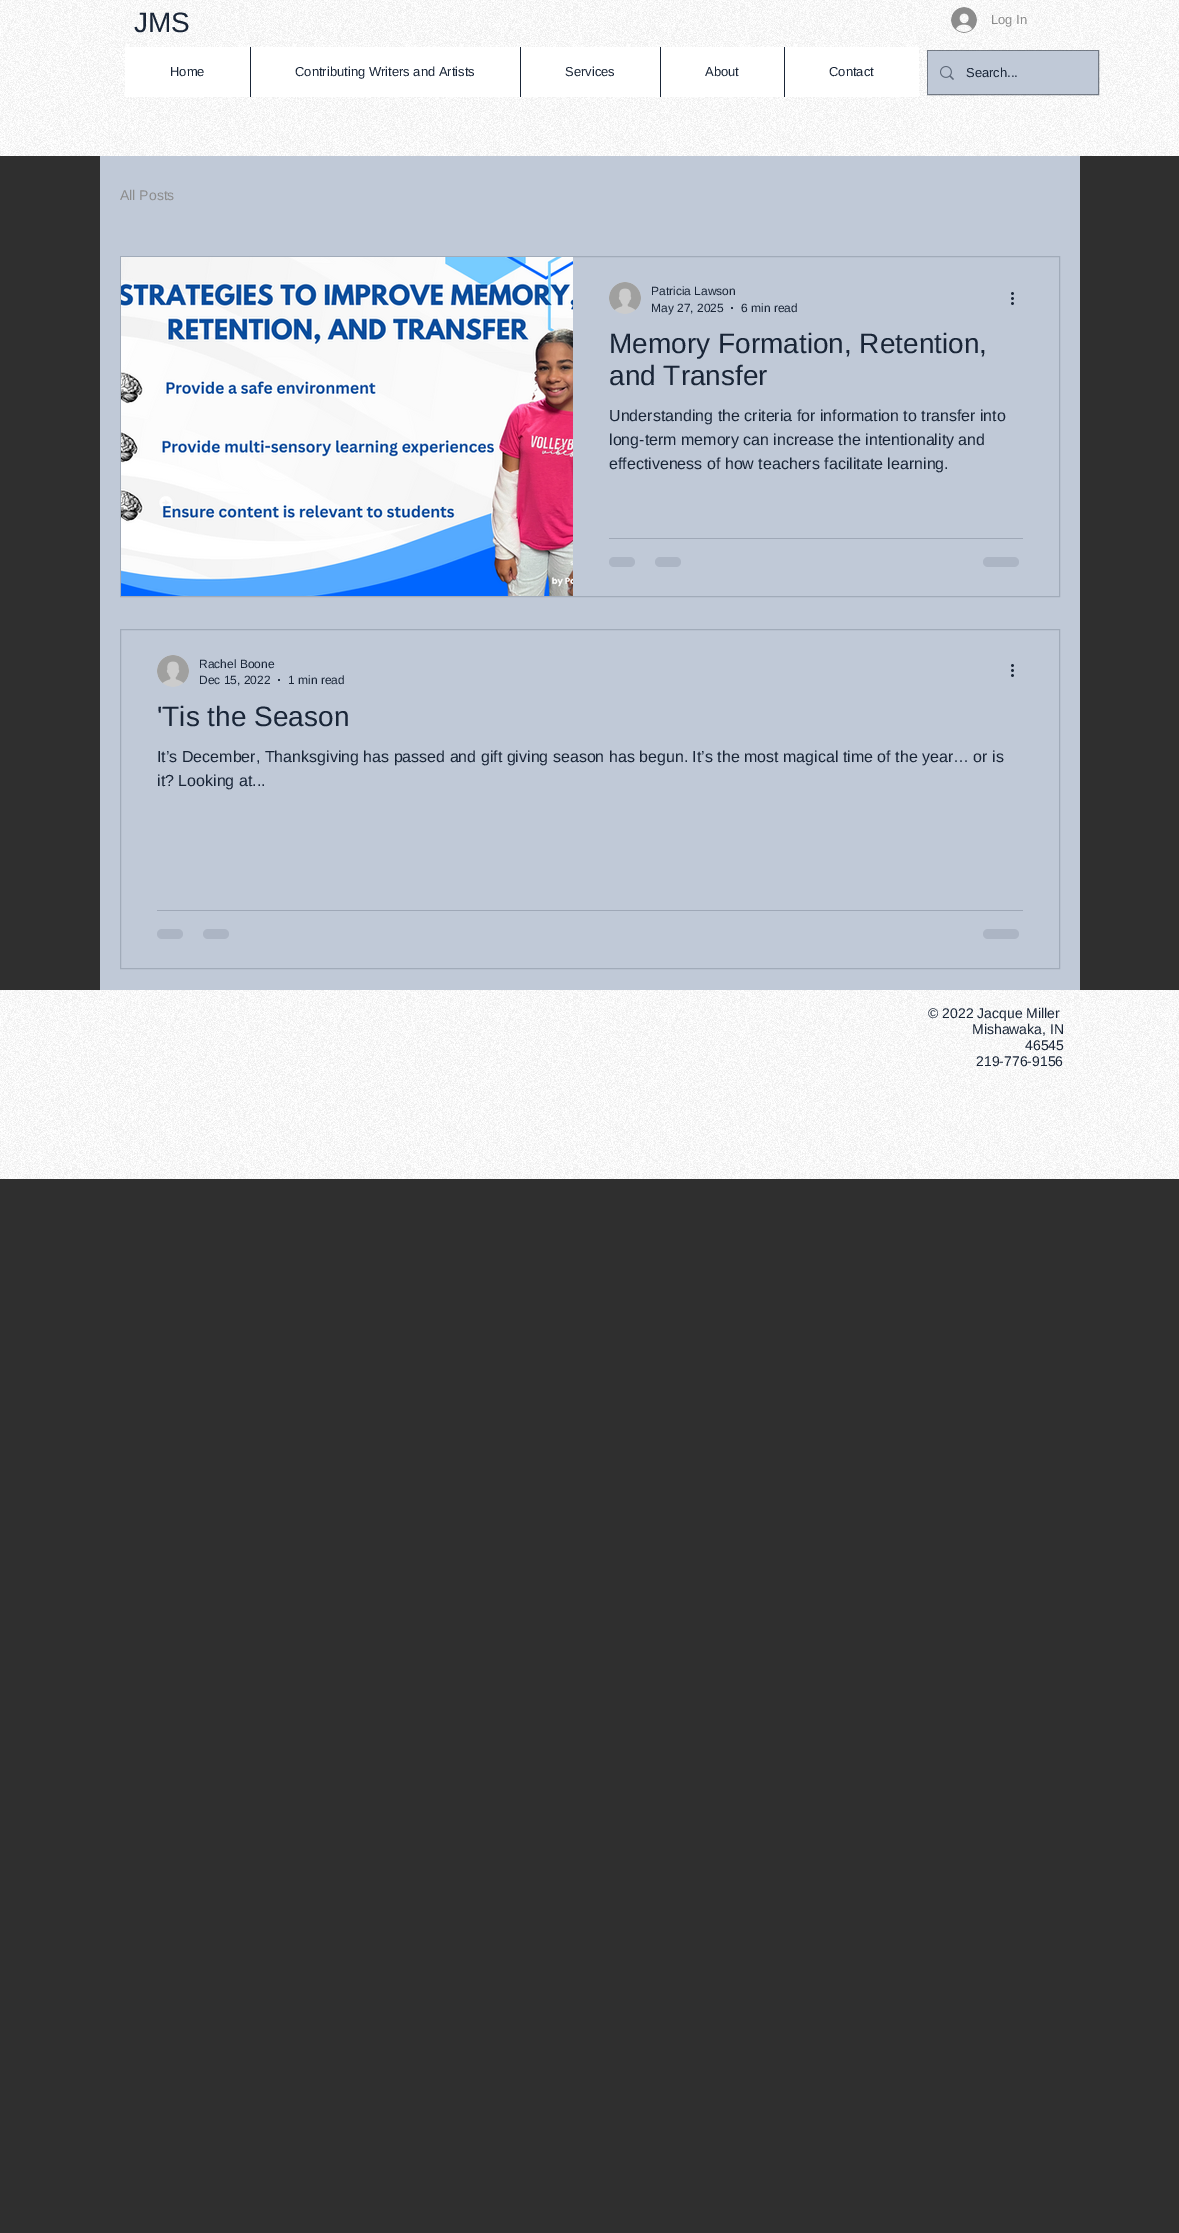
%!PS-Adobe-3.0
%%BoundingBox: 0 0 1179 2233
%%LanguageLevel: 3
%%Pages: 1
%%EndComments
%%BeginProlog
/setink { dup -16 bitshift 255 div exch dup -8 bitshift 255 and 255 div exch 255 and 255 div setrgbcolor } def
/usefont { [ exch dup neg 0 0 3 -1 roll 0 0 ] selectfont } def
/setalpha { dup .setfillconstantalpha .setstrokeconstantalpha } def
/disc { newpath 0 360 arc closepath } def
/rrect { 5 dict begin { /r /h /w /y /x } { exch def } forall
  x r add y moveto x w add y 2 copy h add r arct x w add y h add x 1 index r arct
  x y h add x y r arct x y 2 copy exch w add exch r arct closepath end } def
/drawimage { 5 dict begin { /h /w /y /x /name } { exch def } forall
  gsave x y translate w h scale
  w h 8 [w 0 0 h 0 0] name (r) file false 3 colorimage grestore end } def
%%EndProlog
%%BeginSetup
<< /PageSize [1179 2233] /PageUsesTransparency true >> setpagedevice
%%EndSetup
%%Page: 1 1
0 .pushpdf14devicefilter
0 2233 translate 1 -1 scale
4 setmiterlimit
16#2F2F2F setink
0 0 1179 2233 rectfill
16#FFFFFF setink
0 0 1179 156 rectfill
(img1.raw) 0 0 1179 156 drawimage
/LiberationSans-Regular 28 usefont
16#192537 setink
134 32 moveto (JMS) show
(img2.raw) 951 7 26 26 drawimage
/LiberationSans-Regular 13 usefont
16#8C8C8C setink
991 24 moveto (Log In) show
16#FFFFFF setink
125 47 794 50 rectfill
16#192537 setink
170 76 moveto (Home) show
250 47 1 50 rectfill
295 76 moveto (Contributing Writers and Artists) show
520 47 1 50 rectfill
565 76 moveto (Services) show
660 47 1 50 rectfill
705 76 moveto (About) show
784 47 1 50 rectfill
829 76 moveto (Contact) show
0.6 setalpha
927.5 50.5 171 44 rectstroke
1 setalpha
16#C0C9D7 setink
928 51 170 43 rectfill
(img3.raw) 940 66 14 14 drawimage
16#192537 setink
966 77 moveto (Search...) show
16#C0C9D7 setink
100 156 980 834 rectfill
/LiberationSans-Regular 14 usefont
16#8C8C8C setink
120 200 moveto (All Posts) show
16#A1ABB9 setink
120.5 256.5 939 340 rectstroke
(img4.raw) 121 257 452 339 drawimage
(img5.raw) 609 282 32 32 drawimage
/LiberationSans-Regular 12 usefont
16#192537 setink
651 295 moveto (Patricia Lawson) show
651 312 moveto (May 27, 2025) show
732 308 1 disc fill
741 312 moveto (6 min read) show
(img6.raw) 1011 292 3 13 drawimage
/LiberationSans-Regular 28 usefont
609 353 moveto (Memory Formation, Retention,) show
609 385 moveto (and Transfer) show
/LiberationSans-Regular 16 usefont
[
    [(Understanding the criteria for information to transfer into) 609 421]
    [(long-term memory can increase the intentionality and) 609 445]
    [(effectiveness of how teachers facilitate learning.) 609 469]
] { aload pop moveto show } forall
16#9FA8B7 setink
609 538 414 1 rectfill
16#ACB5C4 setink
609 557 26 10 5 rrect fill
655 557 26 10 5 rrect fill
983 557 36 10 5 rrect fill
16#A1ABB9 setink
120.5 629.5 939 339 rectstroke
(img5.raw) 157 655 32 32 drawimage
/LiberationSans-Regular 12 usefont
16#192537 setink
199 668 moveto (Rachel Boone) show
199 684 moveto (Dec 15, 2022) show
279 680 1 disc fill
288 684 moveto (1 min read) show
(img6.raw) 1011 664 3 13 drawimage
/LiberationSans-Regular 28 usefont
157 726 moveto ('Tis the Season) show
/LiberationSans-Regular 16 usefont
157 762 moveto (It’s December, Thanksgiving has passed and gift giving season has begun. It’s the most magical time of the year… or is) show
157 786 moveto (it? Looking at...) show
16#9FA8B7 setink
157 910 866 1 rectfill
16#ACB5C4 setink
157 929 26 10 5 rrect fill
203 929 26 10 5 rrect fill
983 929 36 10 5 rrect fill
16#FFFFFF setink
0 990 1179 189 rectfill
(img7.raw) 0 990 1179 189 drawimage
/LiberationSans-Regular 14 usefont
16#192537 setink
[
    [(© 2022 Jacque Miller) 928 1018]
    [(Mishawaka, IN) 972 1034]
    [(46545) 1025 1050]
    [(219-776-9156) 976 1066]
] { aload pop moveto show } forall
.poppdf14devicefilter showpage
%%EOF
